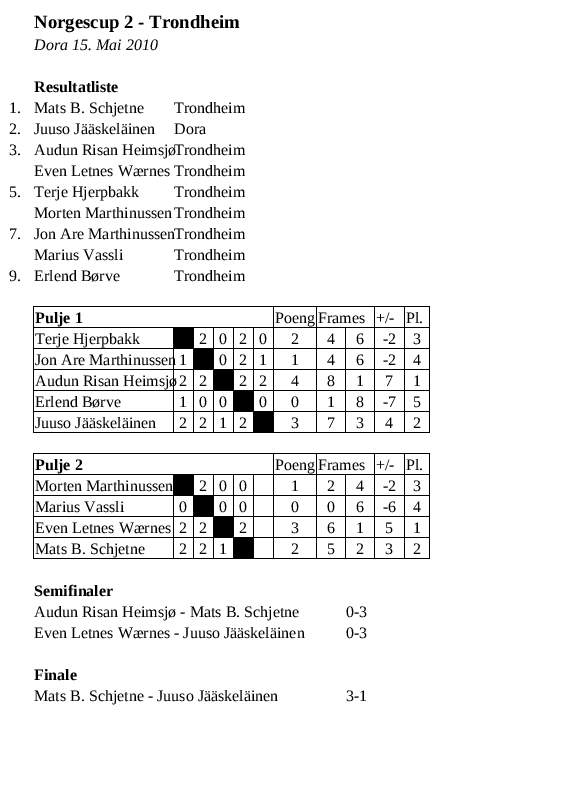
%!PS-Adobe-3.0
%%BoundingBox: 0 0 577 799
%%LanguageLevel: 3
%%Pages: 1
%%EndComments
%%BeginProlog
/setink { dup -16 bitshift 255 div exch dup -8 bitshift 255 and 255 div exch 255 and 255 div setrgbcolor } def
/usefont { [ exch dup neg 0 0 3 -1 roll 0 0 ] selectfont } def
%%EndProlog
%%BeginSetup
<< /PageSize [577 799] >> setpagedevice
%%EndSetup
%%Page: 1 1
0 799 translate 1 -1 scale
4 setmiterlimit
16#FFFFFF setink
0 0 577 799 rectfill
/LiberationSerif-Bold 18.75 usefont
16#000000 setink
34 28 moveto (Norgescup 2 - Trondheim) show
/LiberationSerif-Italic 16 usefont
34 50 moveto (Dora 15. Mai 2010) show
/LiberationSerif-Bold 16 usefont
34 92 moveto (Resultatliste) show
/LiberationSerif-Regular 16 usefont
[
    [(1.) 9 113]
    [(Mats B. Schjetne) 34 113]
    [(Trondheim) 174 113]
    [(2.) 9 134]
    [(Juuso Jääskeläinen) 34 134]
    [(Dora) 174 134]
    [(3.) 9 155]
    [(Audun Risan Heimsjø) 34 155]
    [(Trondheim) 174 155]
    [(Even Letnes Wærnes Trondheim) 34 176]
    [(5.) 9 197]
    [(Terje Hjerpbakk) 34 197]
    [(Trondheim) 174 197]
    [(Morten Marthinussen) 34 218]
    [(Trondheim) 174 218]
    [(7.) 9 239]
    [(Jon Are Marthinussen) 34 239]
    [(Trondheim) 174 239]
    [(Marius Vassli) 34 260]
    [(Trondheim) 174 260]
    [(9.) 9 281]
    [(Erlend Børve) 34 281]
    [(Trondheim) 174 281]
] { aload pop moveto show } forall
[
    [173 327 20 21 16#000000]
    [193 348 20 21 16#000000]
    [193 327 1 22 16#000000]
    [213 369 20 21 16#000000]
    [213 348 1 22 16#000000]
    [233 390 20 21 16#000000]
    [233 369 1 22 16#000000]
    [253 411 20 21 16#000000]
    [253 390 1 22 16#000000]
    [429 327 1 106 16#000000]
    [404 432 26 1 16#000000]
    [404 411 1 22 16#000000]
    [374 432 31 1 16#000000]
    [374 411 1 22 16#000000]
    [345 432 30 1 16#000000]
    [345 411 1 22 16#000000]
    [316 432 30 1 16#000000]
    [316 411 1 22 16#000000]
    [273 432 44 1 16#000000]
    [273 411 1 22 16#000000]
    [233 432 41 1 16#000000]
    [233 411 1 22 16#000000]
    [213 432 21 1 16#000000]
    [213 411 1 22 16#000000]
    [213 411 41 1 16#000000]
    [213 390 1 22 16#000000]
    [193 432 21 1 16#000000]
    [193 411 1 22 16#000000]
    [193 411 21 1 16#000000]
    [193 390 1 22 16#000000]
    [193 390 41 1 16#000000]
    [193 369 1 22 16#000000]
    [173 432 21 1 16#000000]
    [173 411 1 22 16#000000]
    [173 411 21 1 16#000000]
    [173 390 1 22 16#000000]
    [173 390 21 1 16#000000]
    [173 369 1 22 16#000000]
    [173 369 41 1 16#000000]
    [173 348 1 22 16#000000]
    [33 432 141 1 16#000000]
    [33 411 1 22 16#000000]
    [33 411 141 1 16#000000]
    [33 390 1 22 16#000000]
    [33 390 141 1 16#000000]
    [33 369 1 22 16#000000]
    [33 369 141 1 16#000000]
    [33 348 1 22 16#000000]
    [33 348 161 1 16#000000]
    [33 327 1 22 16#000000]
    [33 327 141 1 16#000000]
    [316 306 114 1 16#000000]
    [429 306 1 22 16#000000]
    [404 411 26 1 16#000000]
    [404 390 1 22 16#000000]
    [404 390 26 1 16#000000]
    [404 369 1 22 16#000000]
    [404 369 26 1 16#000000]
    [404 348 1 22 16#000000]
    [404 348 26 1 16#000000]
    [404 327 1 22 16#000000]
    [404 327 26 1 16#000000]
    [404 306 1 22 16#000000]
    [374 411 31 1 16#000000]
    [374 390 1 22 16#000000]
    [374 390 31 1 16#000000]
    [374 369 1 22 16#000000]
    [374 369 31 1 16#000000]
    [374 348 1 22 16#000000]
    [374 348 31 1 16#000000]
    [374 327 1 22 16#000000]
    [374 327 31 1 16#000000]
    [374 306 1 22 16#000000]
    [345 411 30 1 16#000000]
    [345 390 1 22 16#000000]
    [345 390 30 1 16#000000]
    [345 369 1 22 16#000000]
    [345 369 30 1 16#000000]
    [345 348 1 22 16#000000]
    [345 348 30 1 16#000000]
    [345 327 1 22 16#000000]
    [316 411 30 1 16#000000]
    [316 390 1 22 16#000000]
    [316 390 30 1 16#000000]
    [316 369 1 22 16#000000]
    [316 369 30 1 16#000000]
    [316 348 1 22 16#000000]
    [316 348 30 1 16#000000]
    [316 327 1 22 16#000000]
    [316 327 59 1 16#000000]
    [316 306 1 22 16#000000]
    [33 306 284 1 16#000000]
    [33 306 1 22 16#000000]
] { aload pop setink rectfill } forall
/LiberationSerif-Bold 16 usefont
35 323 moveto (Pulje 1) show
[
    [273 411 44 1 16#000000]
    [273 390 1 22 16#000000]
    [273 390 44 1 16#000000]
    [273 369 1 22 16#000000]
    [273 369 44 1 16#000000]
    [273 348 1 22 16#000000]
    [273 348 44 1 16#000000]
    [273 327 1 22 16#000000]
    [273 327 44 1 16#000000]
    [273 306 1 22 16#000000]
    [253 390 21 1 16#000000]
    [253 369 1 22 16#000000]
    [253 369 21 1 16#000000]
    [253 348 1 22 16#000000]
    [253 348 21 1 16#000000]
    [253 327 1 22 16#000000]
    [233 369 21 1 16#000000]
    [233 348 1 22 16#000000]
    [233 348 21 1 16#000000]
    [233 327 1 22 16#000000]
    [213 348 21 1 16#000000]
    [213 327 1 22 16#000000]
    [193 327 81 1 16#000000]
] { aload pop setink rectfill } forall
/LiberationSerif-Regular 16 usefont
[
    [(Poeng) 275 323]
    [(Frames) 318 323]
    [(+/-) 376 323]
    [(Pl.) 406 323]
    [(Terje Hjerpbakk) 35 344]
    [(2) 199 344]
    [(0) 219 344]
    [(2) 239 344]
    [(0) 259 344]
    [(2) 291 344]
    [(4) 327 344]
    [(6) 356 344]
    [(-2) 383 344]
    [(3) 413 344]
    [(Jon Are Marthinussen) 35 365]
    [(1) 179 365]
    [(0) 219 365]
    [(2) 239 365]
    [(1) 259 365]
    [(1) 291 365]
    [(4) 327 365]
    [(6) 356 365]
    [(-2) 383 365]
    [(4) 413 365]
    [(Audun Risan Heimsjø) 35 386]
    [(2) 179 386]
    [(2) 199 386]
    [(2) 239 386]
    [(2) 259 386]
    [(4) 291 386]
    [(8) 327 386]
    [(1) 356 386]
    [(7) 385 386]
    [(1) 413 386]
    [(Erlend Børve) 35 407]
    [(1) 179 407]
    [(0) 199 407]
    [(0) 219 407]
    [(0) 259 407]
    [(0) 291 407]
    [(1) 327 407]
    [(8) 356 407]
    [(-7) 383 407]
    [(5) 413 407]
    [(Juuso Jääskeläinen) 35 428]
    [(2) 179 428]
    [(2) 199 428]
    [(1) 219 428]
    [(2) 239 428]
    [(3) 291 428]
    [(7) 327 428]
    [(3) 356 428]
    [(4) 385 428]
    [(2) 413 428]
] { aload pop moveto show } forall
[
    [173 474 20 21 16#000000]
    [193 495 20 21 16#000000]
    [193 474 1 22 16#000000]
    [213 516 20 21 16#000000]
    [213 495 1 22 16#000000]
    [233 537 20 21 16#000000]
    [233 516 1 22 16#000000]
    [429 474 1 85 16#000000]
    [404 558 26 1 16#000000]
    [404 537 1 22 16#000000]
    [374 558 31 1 16#000000]
    [374 537 1 22 16#000000]
    [345 558 30 1 16#000000]
    [345 537 1 22 16#000000]
    [316 558 30 1 16#000000]
    [316 537 1 22 16#000000]
    [273 558 44 1 16#000000]
    [273 537 1 22 16#000000]
    [253 558 21 1 16#000000]
    [253 537 1 22 16#000000]
    [213 558 41 1 16#000000]
    [213 537 1 22 16#000000]
    [193 558 21 1 16#000000]
    [193 537 1 22 16#000000]
    [193 537 41 1 16#000000]
    [193 516 1 22 16#000000]
    [173 558 21 1 16#000000]
    [173 537 1 22 16#000000]
    [173 537 21 1 16#000000]
    [173 516 1 22 16#000000]
    [173 516 41 1 16#000000]
    [173 495 1 22 16#000000]
    [33 558 141 1 16#000000]
    [33 537 1 22 16#000000]
    [33 537 141 1 16#000000]
    [33 516 1 22 16#000000]
    [33 516 141 1 16#000000]
    [33 495 1 22 16#000000]
    [33 495 161 1 16#000000]
    [33 474 1 22 16#000000]
    [33 474 141 1 16#000000]
    [316 453 114 1 16#000000]
    [429 453 1 22 16#000000]
    [404 537 26 1 16#000000]
    [404 516 1 22 16#000000]
    [404 516 26 1 16#000000]
    [404 495 1 22 16#000000]
    [404 495 26 1 16#000000]
    [404 474 1 22 16#000000]
    [404 474 26 1 16#000000]
    [404 453 1 22 16#000000]
    [374 537 31 1 16#000000]
    [374 516 1 22 16#000000]
    [374 516 31 1 16#000000]
    [374 495 1 22 16#000000]
    [374 495 31 1 16#000000]
    [374 474 1 22 16#000000]
    [374 474 31 1 16#000000]
    [374 453 1 22 16#000000]
    [345 537 30 1 16#000000]
    [345 516 1 22 16#000000]
    [345 516 30 1 16#000000]
    [345 495 1 22 16#000000]
    [345 495 30 1 16#000000]
    [345 474 1 22 16#000000]
    [316 537 30 1 16#000000]
    [316 516 1 22 16#000000]
    [316 516 30 1 16#000000]
    [316 495 1 22 16#000000]
    [316 495 30 1 16#000000]
    [316 474 1 22 16#000000]
    [316 474 59 1 16#000000]
    [316 453 1 22 16#000000]
    [33 453 284 1 16#000000]
    [33 453 1 22 16#000000]
] { aload pop setink rectfill } forall
/LiberationSerif-Bold 16 usefont
35 470 moveto (Pulje 2) show
[
    [273 537 44 1 16#000000]
    [273 516 1 22 16#000000]
    [273 516 44 1 16#000000]
    [273 495 1 22 16#000000]
    [273 495 44 1 16#000000]
    [273 474 1 22 16#000000]
    [273 474 44 1 16#000000]
    [273 453 1 22 16#000000]
    [253 537 21 1 16#000000]
    [253 516 1 22 16#000000]
    [253 516 21 1 16#000000]
    [253 495 1 22 16#000000]
    [253 495 21 1 16#000000]
    [253 474 1 22 16#000000]
    [233 516 21 1 16#000000]
    [233 495 1 22 16#000000]
    [233 495 21 1 16#000000]
    [233 474 1 22 16#000000]
    [213 495 21 1 16#000000]
    [213 474 1 22 16#000000]
    [193 474 81 1 16#000000]
] { aload pop setink rectfill } forall
/LiberationSerif-Regular 16 usefont
[
    [(Poeng) 275 470]
    [(Frames) 318 470]
    [(+/-) 376 470]
    [(Pl.) 406 470]
    [(Morten Marthinussen) 35 491]
    [(2) 199 491]
    [(0) 219 491]
    [(0) 239 491]
    [(1) 291 491]
    [(2) 327 491]
    [(4) 356 491]
    [(-2) 383 491]
    [(3) 413 491]
    [(Marius Vassli) 35 512]
    [(0) 179 512]
    [(0) 219 512]
    [(0) 239 512]
    [(0) 291 512]
    [(0) 327 512]
    [(6) 356 512]
    [(-6) 383 512]
    [(4) 413 512]
    [(Even Letnes Wærnes) 35 533]
    [(2) 179 533]
    [(2) 199 533]
    [(2) 239 533]
    [(3) 291 533]
    [(6) 327 533]
    [(1) 356 533]
    [(5) 385 533]
    [(1) 413 533]
    [(Mats B. Schjetne) 35 554]
    [(2) 179 554]
    [(2) 199 554]
    [(1) 219 554]
    [(2) 291 554]
    [(5) 327 554]
    [(2) 356 554]
    [(3) 385 554]
    [(2) 413 554]
] { aload pop moveto show } forall
/LiberationSerif-Bold 16 usefont
34 596 moveto (Semifinaler) show
/LiberationSerif-Regular 16 usefont
[
    [(Audun Risan Heimsjø - Mats B. Schjetne) 34 617]
    [(0-3) 346 617]
    [(Even Letnes Wærnes - Juuso Jääskeläinen) 34 638]
    [(0-3) 346 638]
] { aload pop moveto show } forall
/LiberationSerif-Bold 16 usefont
34 680 moveto (Finale) show
/LiberationSerif-Regular 16 usefont
34 701 moveto (Mats B. Schjetne - Juuso Jääskeläinen) show
346 701 moveto (3-1) show
showpage
%%EOF
